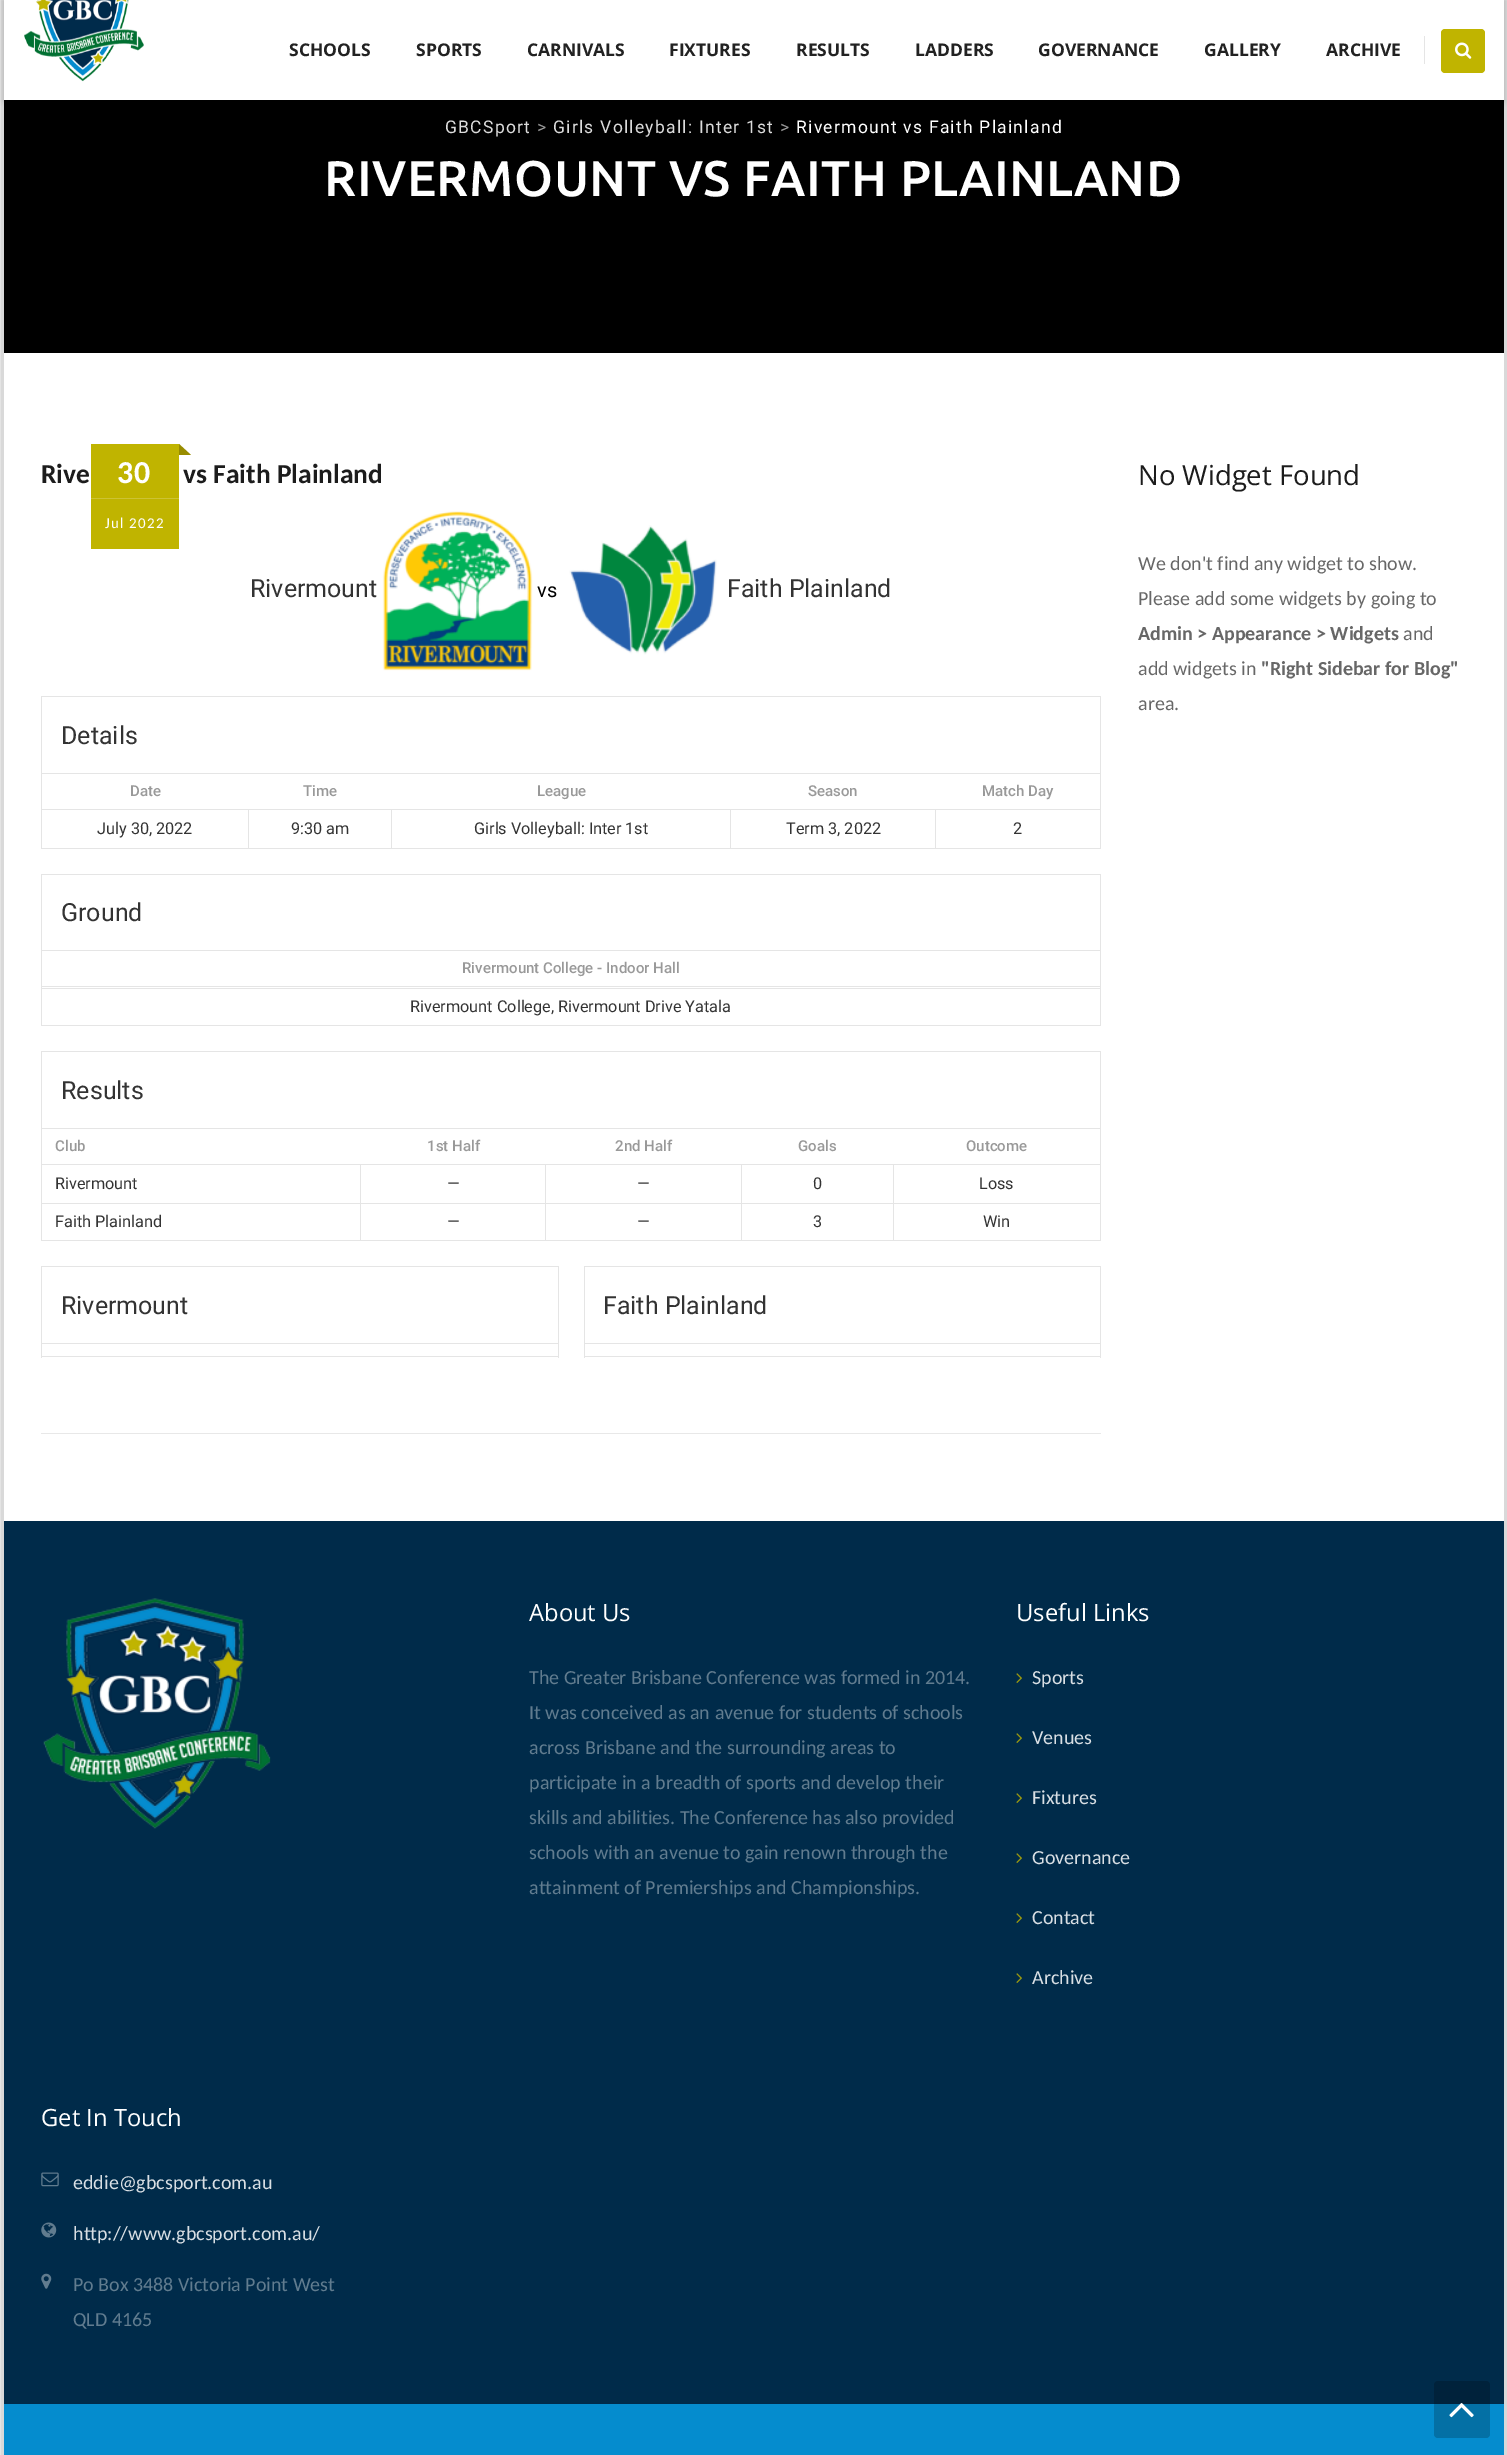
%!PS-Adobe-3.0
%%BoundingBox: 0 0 1507 2455
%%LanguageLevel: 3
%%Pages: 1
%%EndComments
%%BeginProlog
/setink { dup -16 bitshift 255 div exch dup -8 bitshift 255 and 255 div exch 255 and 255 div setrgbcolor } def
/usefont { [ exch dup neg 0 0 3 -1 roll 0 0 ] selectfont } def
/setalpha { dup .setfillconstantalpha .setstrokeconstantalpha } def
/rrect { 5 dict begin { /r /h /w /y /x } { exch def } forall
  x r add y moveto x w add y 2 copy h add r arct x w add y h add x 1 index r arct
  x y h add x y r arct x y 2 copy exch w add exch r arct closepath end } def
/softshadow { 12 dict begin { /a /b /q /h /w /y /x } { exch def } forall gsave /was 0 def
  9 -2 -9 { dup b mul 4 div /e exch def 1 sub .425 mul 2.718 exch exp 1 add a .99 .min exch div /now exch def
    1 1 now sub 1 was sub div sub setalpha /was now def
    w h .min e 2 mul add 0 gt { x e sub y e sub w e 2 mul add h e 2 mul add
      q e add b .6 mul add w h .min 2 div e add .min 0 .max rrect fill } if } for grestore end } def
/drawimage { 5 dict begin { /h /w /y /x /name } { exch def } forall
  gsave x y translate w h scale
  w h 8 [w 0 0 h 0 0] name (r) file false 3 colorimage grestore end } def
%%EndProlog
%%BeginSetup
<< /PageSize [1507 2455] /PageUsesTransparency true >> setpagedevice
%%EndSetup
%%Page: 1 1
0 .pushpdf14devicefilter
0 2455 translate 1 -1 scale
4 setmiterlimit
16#FFFFFF setink
0 0 1507 2455 rectfill
16#000000 setink
4 -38 1500 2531 0 12.5 0.3 softshadow
16#FFFFFF setink
4 353 1500 1168 rectfill
16#000000 setink
4 100 1500 253 rectfill
4 1 1500 100 0 3 0.2 softshadow
16#FFFFFF setink
4 0 1500 100 rectfill
(img1.raw) 24 0 120 82 drawimage
/OpenSans-Bold 17.5 usefont
16#222222 setink
[
    [(SCHOOLS) 289 56]
    [(SPORTS) 416 56]
    [(CARNIVALS) 527 56]
    [(FIXTURES) 669 56]
    [(RESULTS) 796 56]
    [(LADDERS) 915 56]
    [(GOVERNANCE) 1038 56]
    [(GALLERY) 1204 56]
    [(ARCHIVE) 1326 56]
] { aload pop moveto show } forall
16#E5E5E5 setink
1424 36 1 28 rectfill
16#C0B400 setink
1441 29 44 44 4 rrect fill
(img2.raw) 1455 42 17 17 drawimage
/Roboto-Regular 17.5 usefont
16#DBDBDB setink
445 133 moveto 1.25 0 (GBCSport) ashow
16#999999 setink
537 133 moveto 1.25 0 (>) ashow
16#DBDBDB setink
553 133 moveto 1.25 0 (Girls Volleyball: Inter 1st) ashow
16#999999 setink
780 133 moveto 1.25 0 (>) ashow
16#FFFFFF setink
796 133 moveto 1.25 0 (Rivermount vs Faith Plainland) ashow
/Ubuntu-Medium 50 usefont
324 196 moveto 0.6 0 (RIVERMOUNT VS FAITH PLAINLAND) ashow
16#C0B400 setink
91 444 88 105 rectfill
16#988C00 setink
191 455 moveto 179 455 lineto 179 444 lineto closepath fill
16#CDC333 setink
91 498 88 1 rectfill
/Carlito-Bold 32 usefont
16#FFFFFF setink
117 483 moveto 1.25 0 (30) ashow
/Carlito-Regular 15 usefont
105 528 moveto 1.25 0 (Jul 2022) ashow
16#E8E8E8 setink
41 1433 1060 1 rectfill
/Carlito-Bold 27.5 usefont
16#1C1C1C setink
41 483 moveto (Rive) show
183 483 moveto (vs Faith Plainland) show
/Roboto-Regular 25 usefont
16#333333 setink
250 597 moveto (Rivermount) show
(img3.raw) 382 511 151 160 drawimage
/Roboto-Regular 20 usefont
16#000000 setink
537 597 moveto (vs) show
(img4.raw) 569 525 148 130 drawimage
/Roboto-Regular 25 usefont
16#333333 setink
727 597 moveto (Faith Plainland) show
[
    [41 696 1060 1 16#E5E5E5]
    [1100 696 1 77 16#E5E5E5]
    [41 696 1 77 16#E5E5E5]
] { aload pop setink rectfill } forall
16#333333 setink
61 744 moveto (Details) show
[
    [41 773 1060 1 16#E5E5E5]
    [1100 773 1 76 16#E5E5E5]
    [41 848 1060 1 16#E5E5E5]
    [41 773 1 76 16#E5E5E5]
] { aload pop setink rectfill } forall
/Roboto-Medium 15 usefont
16#999999 setink
[
    [(Date) 130 796]
    [(Time) 303 796]
    [(League) 537 796]
    [(Season) 808 796]
    [(Match Day) 982 796]
] { aload pop moveto show } forall
[
    [935 809 166 1 16#E5E5E5]
    [935 809 1 40 16#E5E5E5]
    [730 809 206 1 16#E5E5E5]
    [730 809 1 40 16#E5E5E5]
    [391 809 340 1 16#E5E5E5]
    [391 809 1 40 16#E5E5E5]
    [248 809 145 1 16#E5E5E5]
    [248 809 1 40 16#E5E5E5]
    [41 809 208 1 16#E5E5E5]
] { aload pop setink rectfill } forall
/Roboto-Regular 16.25 usefont
16#333333 setink
[
    [(July 30, 2022) 97 834]
    [(9:30 am) 291 834]
    [(Girls Volleyball: Inter 1st) 474 834]
    [(Term 3, 2022) 786 834]
    [(2) 1013 834]
] { aload pop moveto show } forall
[
    [41 874 1060 1 16#E5E5E5]
    [1100 874 1 76 16#E5E5E5]
    [41 874 1 76 16#E5E5E5]
] { aload pop setink rectfill } forall
/Roboto-Regular 25 usefont
16#333333 setink
61 921 moveto (Ground) show
[
    [41 950 1060 1 16#E5E5E5]
    [1100 950 1 76 16#E5E5E5]
    [41 1025 1060 1 16#E5E5E5]
    [41 950 1 76 16#E5E5E5]
] { aload pop setink rectfill } forall
/Roboto-Medium 15 usefont
16#999999 setink
462 973 moveto (Rivermount College - Indoor Hall) show
16#E5E5E5 setink
41 986 1060 1 rectfill
41 988 1060 1 rectfill
/Roboto-Regular 16.25 usefont
16#333333 setink
410 1012 moveto (Rivermount College, Rivermount Drive Yatala) show
[
    [41 1051 1060 1 16#E5E5E5]
    [1100 1051 1 77 16#E5E5E5]
    [41 1051 1 77 16#E5E5E5]
] { aload pop setink rectfill } forall
/Roboto-Regular 25 usefont
16#333333 setink
61 1099 moveto (Results) show
[
    [41 1128 1060 1 16#E5E5E5]
    [1100 1128 1 113 16#E5E5E5]
    [41 1240 1060 1 16#E5E5E5]
    [41 1128 1 113 16#E5E5E5]
] { aload pop setink rectfill } forall
/Roboto-Medium 15 usefont
16#999999 setink
[
    [(Club) 55 1151]
    [(1st Half) 427 1151]
    [(2nd Half) 615 1151]
    [(Goals) 798 1151]
    [(Outcome) 966 1151]
] { aload pop moveto show } forall
[
    [893 1164 208 1 16#E5E5E5]
    [893 1203 208 1 16#E5E5E5]
    [893 1203 1 38 16#E5E5E5]
    [741 1203 153 1 16#E5E5E5]
    [893 1164 1 40 16#E5E5E5]
    [741 1164 153 1 16#E5E5E5]
    [741 1203 1 38 16#E5E5E5]
    [545 1203 198 1 16#E5E5E5]
    [741 1164 1 40 16#E5E5E5]
    [545 1164 198 1 16#E5E5E5]
    [545 1203 1 38 16#E5E5E5]
    [360 1203 186 1 16#E5E5E5]
    [545 1164 1 40 16#E5E5E5]
    [360 1164 186 1 16#E5E5E5]
    [360 1203 1 38 16#E5E5E5]
    [41 1203 320 1 16#E5E5E5]
    [360 1164 1 40 16#E5E5E5]
    [41 1164 320 1 16#E5E5E5]
] { aload pop setink rectfill } forall
/Roboto-Regular 16.25 usefont
16#333333 setink
[
    [(Rivermount) 55 1189]
    [(—) 447 1189]
    [(—) 637 1189]
    [(0) 813 1189]
    [(Loss) 979 1189]
    [(Faith Plainland) 55 1227]
    [(—) 447 1227]
    [(—) 637 1227]
    [(3) 813 1227]
    [(Win) 983 1227]
] { aload pop moveto show } forall
[
    [41 1266 518 1 16#E5E5E5]
    [558 1266 1 77 16#E5E5E5]
    [41 1266 1 77 16#E5E5E5]
] { aload pop setink rectfill } forall
/Roboto-Regular 25 usefont
16#333333 setink
61 1314 moveto (Rivermount) show
[
    [41 1343 518 1 16#E5E5E5]
    [558 1343 1 15 16#E5E5E5]
    [41 1356 518 1 16#E5E5E5]
    [41 1343 1 15 16#E5E5E5]
    [584 1266 517 1 16#E5E5E5]
    [1100 1266 1 77 16#E5E5E5]
    [584 1266 1 77 16#E5E5E5]
] { aload pop setink rectfill } forall
16#333333 setink
603 1314 moveto (Faith Plainland) show
[
    [584 1343 517 1 16#E5E5E5]
    [1100 1343 1 15 16#E5E5E5]
    [584 1356 517 1 16#E5E5E5]
    [584 1343 1 15 16#E5E5E5]
] { aload pop setink rectfill } forall
/OpenSans-Regular 27.5 usefont
16#1C1C1C setink
1138 485 moveto (No Widget Found) show
/Carlito-Regular 20 usefont
16#676767 setink
1138 570 moveto (We don't find any widget to show.) show
1138 605 moveto (Please add some widgets by going to) show
/Carlito-Bold 20 usefont
1138 640 moveto (Admin > Appearance > Widgets) show
/Carlito-Regular 20 usefont
1403 640 moveto (and) show
1138 675 moveto (add widgets in) show
/Carlito-Bold 20 usefont
1261 675 moveto ("Right Sidebar for Blog") show
/Carlito-Regular 20 usefont
1138 710 moveto (area.) show
16#002B4A setink
4 1521 1500 883 rectfill
(img5.raw) 43 1598 228 231 drawimage
/OpenSans-Regular 23.75 usefont
16#FFFFFF setink
529 1621 moveto (About Us) show
/Carlito-Regular 20 usefont
16#617C8F setink
[
    [(The Greater Brisbane Conference was formed in 2014.) 529 1684]
    [(It was conceived as an avenue for students of schools) 529 1719]
    [(across Brisbane and the surrounding areas to) 529 1754]
    [(participate in a breadth of sports and develop their) 529 1789]
    [(skills and abilities. The Conference has also provided) 529 1824]
    [(schools with an avenue to gain renown through the) 529 1859]
    [(attainment of Premierships and Championships.) 529 1894]
] { aload pop moveto show } forall
/OpenSans-Regular 23.75 usefont
16#FFFFFF setink
1016 1621 moveto (Useful Links) show
(img6.raw) 1016 1673 6 10 drawimage
/Carlito-Regular 20 usefont
16#D9DFE4 setink
1032 1684 moveto (Sports) show
(img6.raw) 1016 1733 6 10 drawimage
1032 1744 moveto (Venues) show
(img6.raw) 1016 1793 6 10 drawimage
1032 1804 moveto (Fixtures) show
(img6.raw) 1016 1853 6 10 drawimage
1032 1864 moveto (Governance) show
(img6.raw) 1016 1913 6 10 drawimage
1032 1924 moveto (Contact) show
(img6.raw) 1016 1973 6 10 drawimage
1032 1984 moveto (Archive) show
/OpenSans-Regular 23.75 usefont
16#FFFFFF setink
41 2126 moveto (Get In Touch) show
(img7.raw) 41 2172 18 15 drawimage
/Carlito-Regular 20 usefont
16#D9DFE4 setink
73 2189 moveto (eddie@gbcsport.com.au) show
(img8.raw) 41 2222 16 16 drawimage
73 2240 moveto (http://www.gbcsport.com.au/) show
(img9.raw) 41 2273 11 16 drawimage
16#617C8F setink
73 2291 moveto (Po Box 3488 Victoria Point West) show
73 2326 moveto (QLD 4165) show
16#058CCE setink
4 2404 1500 51 rectfill
0.2 setalpha
16#000000 setink
1434 2381 56 57 4 rrect fill
1 setalpha
(img10.raw) 1449 2403 25 15 drawimage
.poppdf14devicefilter showpage
%%EOF
